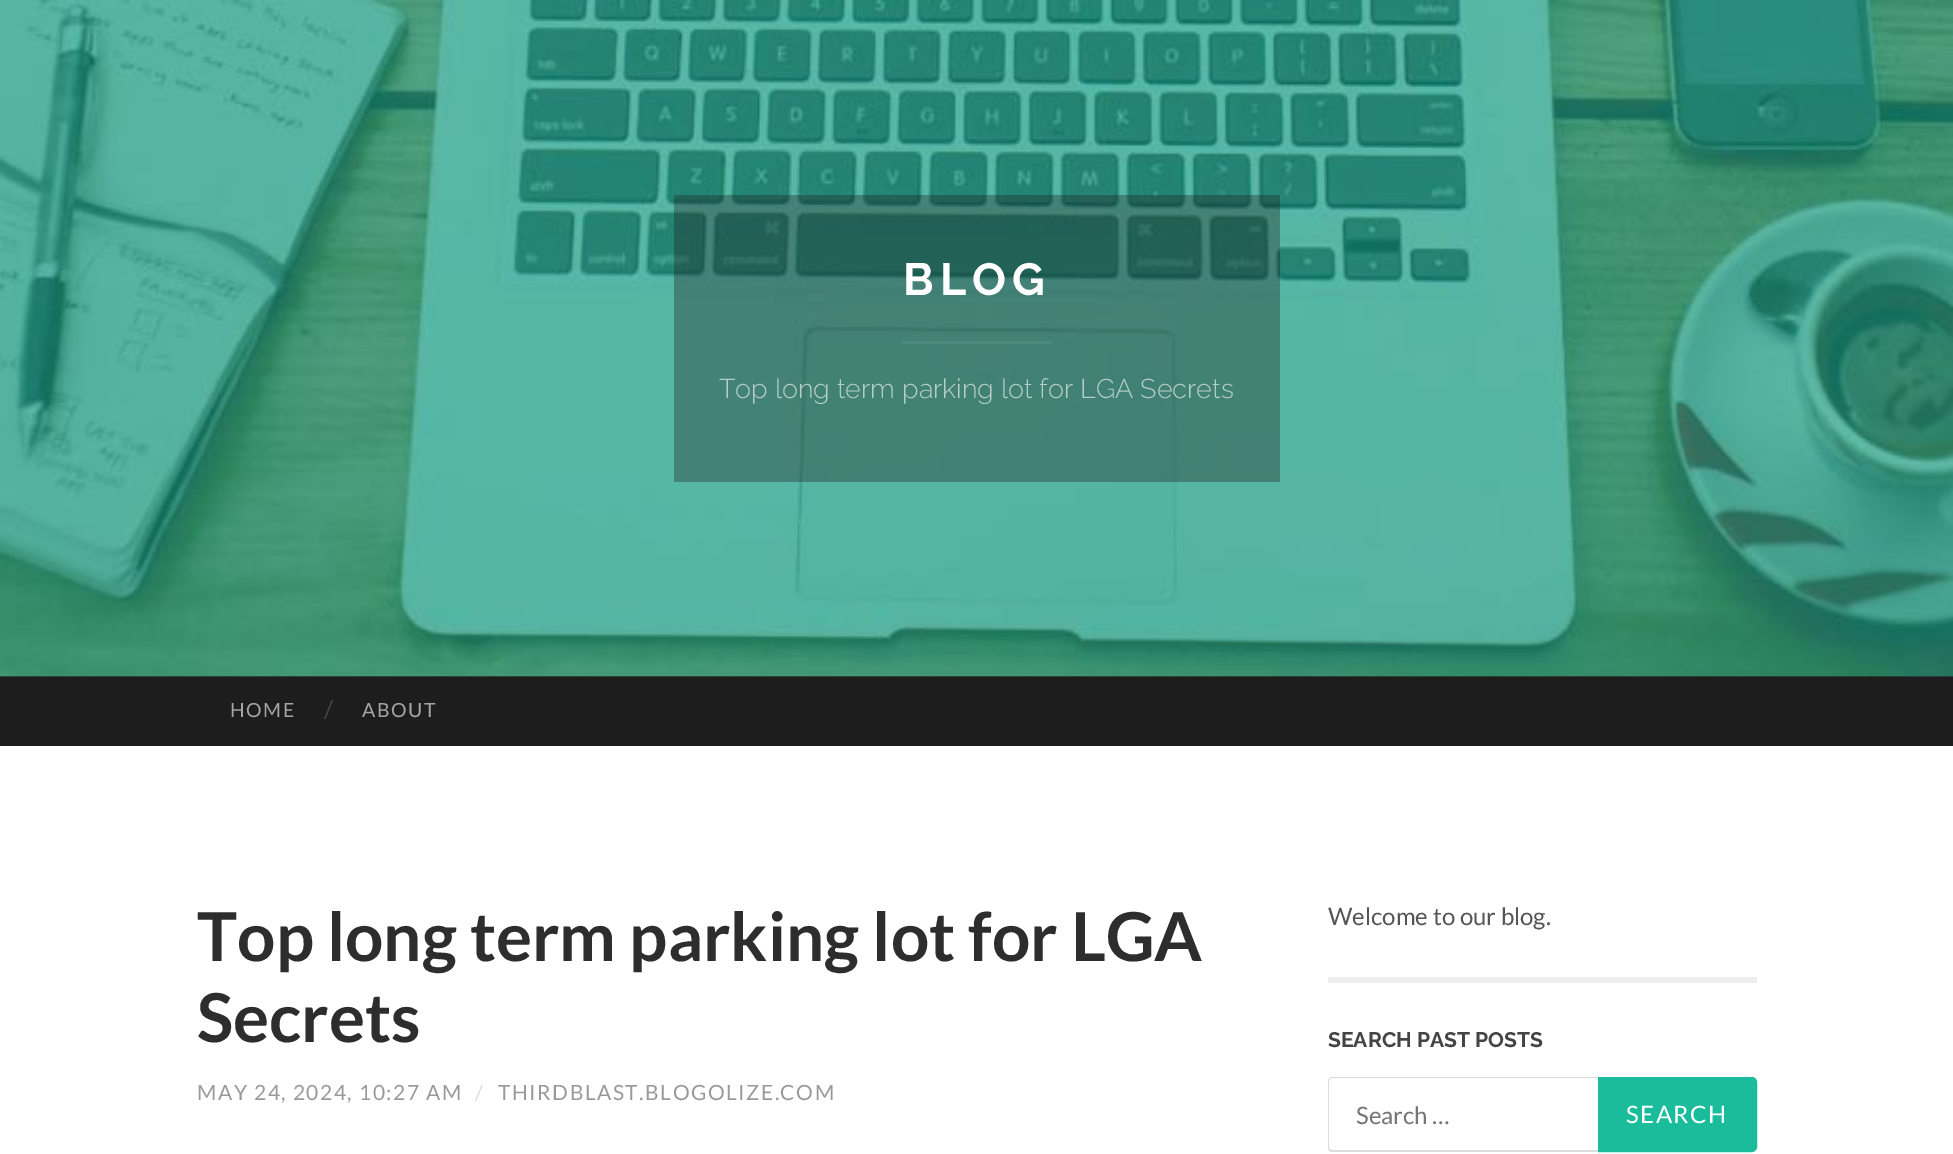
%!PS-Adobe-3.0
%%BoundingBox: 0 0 1953 1154
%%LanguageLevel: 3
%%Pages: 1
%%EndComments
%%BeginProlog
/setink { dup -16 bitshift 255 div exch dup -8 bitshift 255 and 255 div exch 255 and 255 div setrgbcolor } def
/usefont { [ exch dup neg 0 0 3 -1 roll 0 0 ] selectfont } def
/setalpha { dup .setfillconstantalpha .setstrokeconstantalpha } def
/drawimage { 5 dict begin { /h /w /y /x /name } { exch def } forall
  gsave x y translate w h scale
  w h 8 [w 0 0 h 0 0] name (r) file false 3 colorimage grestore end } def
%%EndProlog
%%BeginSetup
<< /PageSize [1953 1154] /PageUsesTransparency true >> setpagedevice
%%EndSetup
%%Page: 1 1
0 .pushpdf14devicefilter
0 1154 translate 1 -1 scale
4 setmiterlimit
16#FFFFFF setink
0 0 1953 1154 rectfill
16#262626 setink
0 676 1953 1 rectfill
(img1.raw) 0 0 1953 677 drawimage
0.34 setalpha
16#1D1D1D setink
674 195 606 287 rectfill
/Raleway-Bold 45 usefont
1 setalpha
16#FFFFFF setink
903 295 moveto 6 0 (BLOG) ashow
16#4E897E setink
902 341 150 3 rectfill
/Raleway-Light 27 usefont
16#B3CDC8 setink
719 398 moveto (Top long term parking lot for LGA Secrets) show
16#1D1D1D setink
0 677 1953 69 rectfill
/Lato-Regular 19.5 usefont
16#A5A5A5 setink
230 717 moveto 1.5 0 (HOME) ashow
/Lato-Regular 24 usefont
16#444444 setink
324 718 moveto (/) show
/Lato-Regular 19.5 usefont
16#A5A5A5 setink
362 717 moveto 1.5 0 (ABOUT) ashow
/Lato-Bold 67.5 usefont
16#2D2D2D setink
197 961 moveto (Top long term parking lot for LGA) show
197 1042 moveto (Secrets) show
/Lato-Regular 21 usefont
16#999999 setink
197 1100 moveto 1.5 0 (MAY 24, 2024, 10:27 AM) ashow
16#DDDDDD setink
475 1100 moveto 1.5 0 (/) ashow
16#999999 setink
498 1100 moveto 1.5 0 (THIRDBLAST.BLOGOLIZE.COM) ashow
16#EEEEEE setink
1328 977 429 6 rectfill
/Lato-Regular 24 usefont
16#555555 setink
1328 925 moveto (Welcome to our blog.) show
/Raleway-Bold 21 usefont
16#444444 setink
1328 1047 moveto (SEARCH PAST POSTS) show
16#DDDDDD setink
1332 1077 moveto 1752 1077 lineto 1752 1152 lineto 1332 1152 lineto 1330 1152 1328 1150 1328 1148 curveto 1328 1082 lineto 1328 1079 1330 1077 1332 1077 curveto closepath 1332 1078 moveto 1752 1078 lineto 1752 1150 lineto 1332 1150 lineto 1330 1150 1329 1149 1329 1148 curveto 1329 1082 lineto 1329 1080 1330 1078 1332 1078 curveto closepath eofill
/Lato-Regular 24 usefont
16#757575 setink
1356 1124 moveto (Search …) show
16#1ABC9C setink
1599 1078 moveto 1752 1078 lineto 1754 1078 1756 1080 1756 1082 curveto 1756 1147 lineto 1756 1149 1754 1151 1752 1151 curveto 1599 1151 lineto closepath gsave fill grestore
2 setlinewidth
stroke
16#FFFFFF setink
1626 1123 moveto 1.5 0 (SEARCH) ashow
.poppdf14devicefilter showpage
%%EOF
